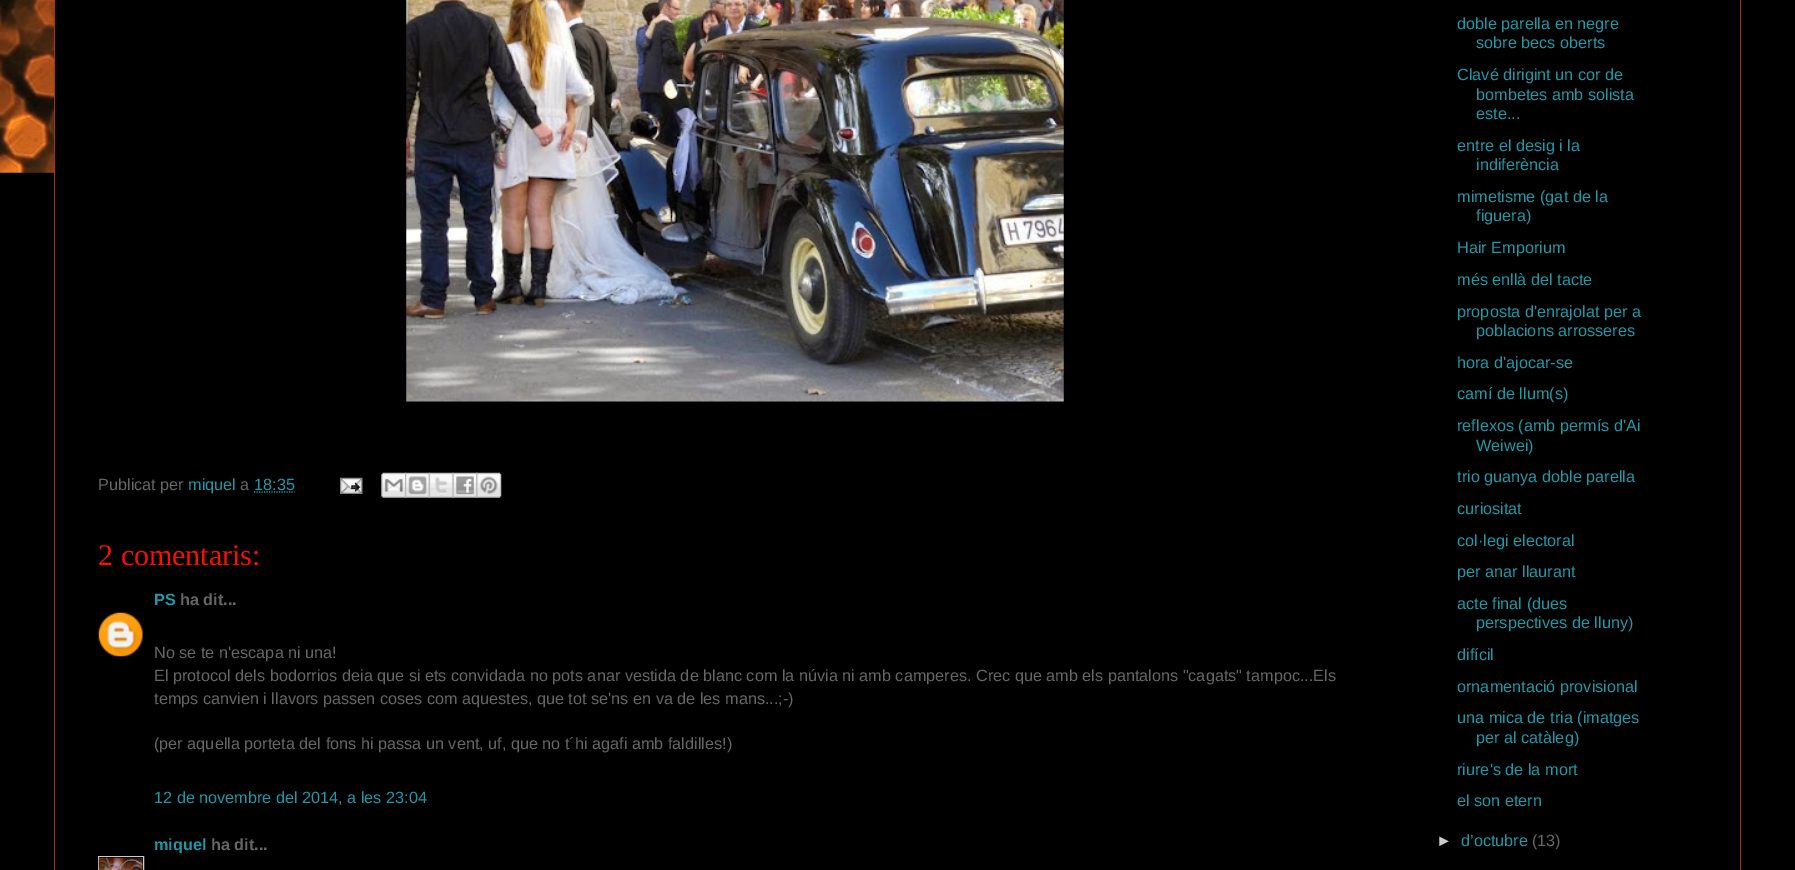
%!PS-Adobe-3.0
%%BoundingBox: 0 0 1795 870
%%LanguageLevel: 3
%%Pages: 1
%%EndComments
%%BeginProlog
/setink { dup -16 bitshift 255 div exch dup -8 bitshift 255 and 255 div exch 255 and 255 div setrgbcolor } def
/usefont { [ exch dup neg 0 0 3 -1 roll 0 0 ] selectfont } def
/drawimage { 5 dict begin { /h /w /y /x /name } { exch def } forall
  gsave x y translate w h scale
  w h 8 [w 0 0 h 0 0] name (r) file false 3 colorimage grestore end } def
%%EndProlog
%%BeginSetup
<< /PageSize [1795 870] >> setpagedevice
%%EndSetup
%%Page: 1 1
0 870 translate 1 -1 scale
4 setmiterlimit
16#000000 setink
0 0 1795 870 rectfill
(img1.raw) 0 0 54 173 drawimage
16#A62F21 setink
1740 0 1 870 rectfill
54 0 1 870 rectfill
(img2.raw) 406 0 658 402 drawimage
/LiberationSans-Regular 16.25 usefont
16#666666 setink
98 490 moveto (Publicat per) show
16#2198A6 setink
188 490 moveto (miquel) show
16#666666 setink
240 490 moveto (a) show
16#2198A6 setink
254 490 moveto (18:35) show
1.2 setlinewidth
[1.25 1.25] 0 setdash
254 492 moveto 294.5 492 lineto stroke
(img3.raw) 340 477 23 17 drawimage
(img4.raw) 381 472 26 26 drawimage
(img5.raw) 405 472 25 26 drawimage
(img6.raw) 428 472 26 26 drawimage
(img7.raw) 452 472 26 26 drawimage
(img8.raw) 476 472 26 26 drawimage
/LiberationSerif-Regular 30 usefont
16#FB1000 setink
98 565 moveto (2 comentaris:) show
/LiberationSans-Bold 16.25 usefont
16#2198A6 setink
154 605 moveto (PS) show
16#666666 setink
180 605 moveto (ha dit...) show
(img9.raw) 98 612 45 45 drawimage
/LiberationSans-Regular 16.25 usefont
[
    [(No se te n'escapa ni una!) 154 658]
    [(El protocol dels bodorrios deia que si ets convidada no pots anar vestida de blanc com la núvia ni amb camperes. Crec que amb els pantalons "cagats" tampoc...Els) 154 681]
    [(temps canvien i llavors passen coses com aquestes, que tot se'ns en va de les mans...;-\)) 154 704]
    [(\(per aquella porteta del fons hi passa un vent, uf, que no t´hi agafi amb faldilles!\)) 154 749]
] { aload pop moveto show } forall
16#2198A6 setink
154 803 moveto (12 de novembre del 2014, a les 23:04) show
/LiberationSans-Bold 16.25 usefont
154 850 moveto (miquel) show
16#666666 setink
211 850 moveto (ha dit...) show
16#CCCCCC setink
1 setlinewidth
[] 0 setdash
98.5 856.5 45 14 rectstroke
(img10.raw) 98 857 45 13 drawimage
/LiberationSans-Regular 16.25 usefont
16#2198A6 setink
[
    [(doble parella en negre) 1457 29]
    [(sobre becs oberts) 1476 48]
    [(Clavé dirigint un cor de) 1457 80]
    [(bombetes amb solista) 1476 100]
    [(este...) 1476 119]
    [(entre el desig i la) 1457 151]
    [(indiferència) 1476 170]
    [(mimetisme \(gat de la) 1457 202]
    [(figuera\)) 1476 221]
    [(Hair Emporium) 1457 253]
    [(més enllà del tacte) 1457 285]
    [(proposta d'enrajolat per a) 1457 317]
    [(poblacions arrosseres) 1476 336]
    [(hora d'ajocar-se) 1457 368]
    [(camí de llum\(s\)) 1457 399]
    [(reflexos \(amb permís d'Ai) 1457 431]
    [(Weiwei\)) 1476 451]
    [(trio guanya doble parella) 1457 482]
    [(curiositat) 1457 514]
    [(col·legi electoral) 1457 546]
    [(per anar llaurant) 1457 577]
    [(acte final \(dues) 1457 609]
    [(perspectives de lluny\)) 1476 628]
    [(difícil) 1457 660]
    [(ornamentació provisional) 1457 692]
    [(una mica de tria \(imatges) 1457 723]
    [(per al catàleg\)) 1476 743]
    [(riure's de la mort) 1457 775]
    [(el son etern) 1457 806]
] { aload pop moveto show } forall
16#CCCCCC setink
1436 846 moveto (►) show
16#2198A6 setink
1461 846 moveto (d’octubre) show
16#666666 setink
1532 846 moveto (\(13\)) show
showpage
%%EOF
